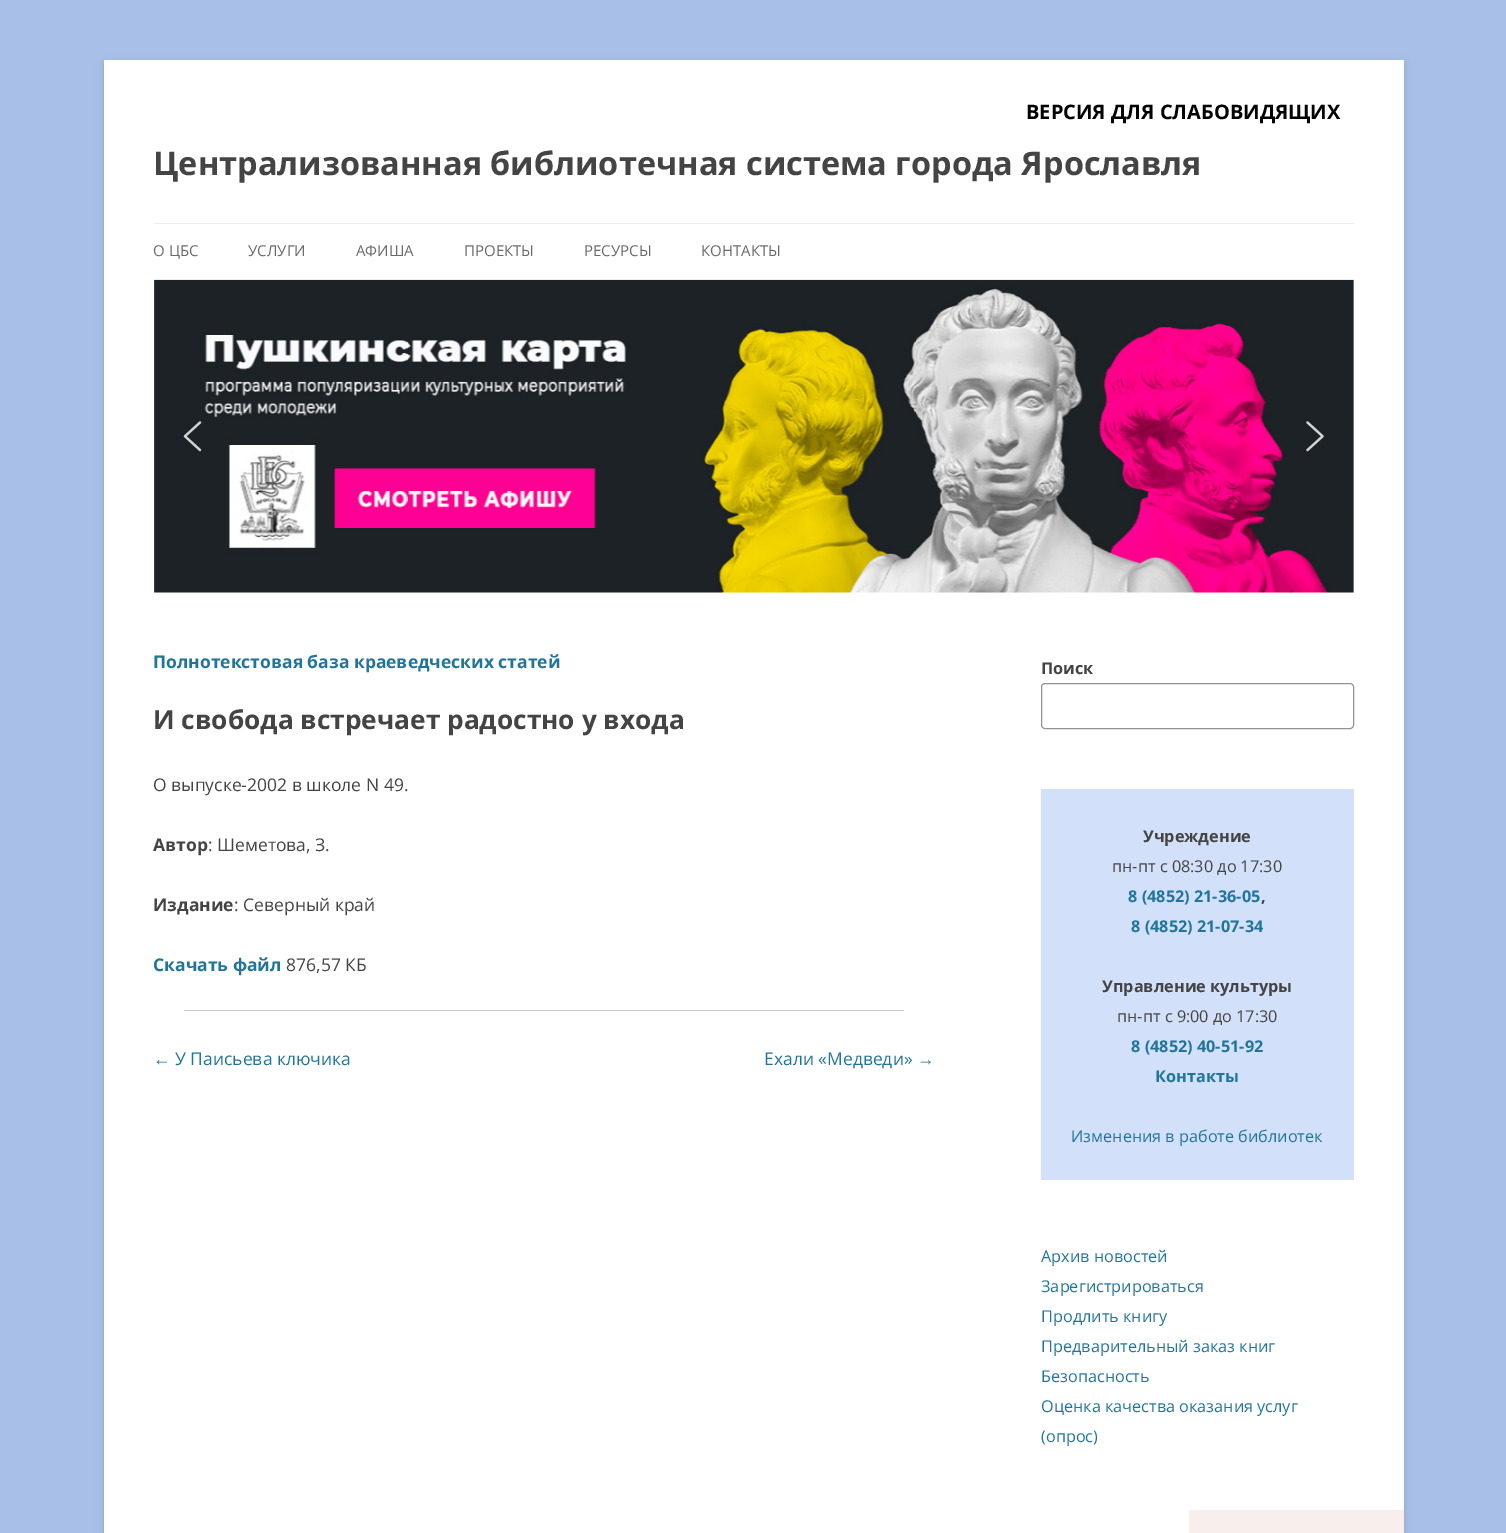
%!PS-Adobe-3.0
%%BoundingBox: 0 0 1506 1533
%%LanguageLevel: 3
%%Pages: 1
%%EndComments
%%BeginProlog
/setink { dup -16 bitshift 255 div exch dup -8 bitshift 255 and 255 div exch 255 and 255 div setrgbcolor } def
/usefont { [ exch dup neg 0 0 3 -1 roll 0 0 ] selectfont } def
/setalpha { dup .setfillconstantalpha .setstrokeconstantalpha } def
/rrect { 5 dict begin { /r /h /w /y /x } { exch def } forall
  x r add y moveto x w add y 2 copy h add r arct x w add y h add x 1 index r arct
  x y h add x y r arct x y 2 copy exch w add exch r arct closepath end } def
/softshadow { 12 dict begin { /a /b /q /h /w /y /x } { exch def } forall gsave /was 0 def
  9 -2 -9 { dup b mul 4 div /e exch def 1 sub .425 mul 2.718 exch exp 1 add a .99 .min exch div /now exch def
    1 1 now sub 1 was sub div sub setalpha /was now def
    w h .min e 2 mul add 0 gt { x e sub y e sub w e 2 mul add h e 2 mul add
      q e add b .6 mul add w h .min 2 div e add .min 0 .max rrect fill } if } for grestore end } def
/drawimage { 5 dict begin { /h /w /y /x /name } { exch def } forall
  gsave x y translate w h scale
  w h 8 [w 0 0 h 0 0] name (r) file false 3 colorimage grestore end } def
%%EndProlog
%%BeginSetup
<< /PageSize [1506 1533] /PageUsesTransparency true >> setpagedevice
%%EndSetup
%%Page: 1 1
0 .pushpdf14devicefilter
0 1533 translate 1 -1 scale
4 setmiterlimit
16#A8BFE8 setink
0 0 1506 1533 rectfill
16#646464 setink
104 63 1300 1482 0 4 0.3 softshadow
16#FFFFFF setink
104 60 1300 1473 rectfill
/OpenSans-Bold 20 usefont
16#000000 setink
1026 119 moveto (ВЕРСИЯ ДЛЯ СЛАБОВИДЯЩИХ) show
/OpenSans-Bold 32.5 usefont
16#444444 setink
153 175 moveto (Централизованная библиотечная система города Ярославля) show
16#EDEDED setink
154 223 1200 1 rectfill
154 279 1200 1 rectfill
/OpenSans-Regular 15 usefont
16#6A6A6A setink
[
    [(О ЦБС) 153 256]
    [(УСЛУГИ) 248 256]
    [(АФИША) 356 256]
    [(ПРОЕКТЫ) 464 256]
    [(РЕСУРСЫ) 584 256]
    [(КОНТАКТЫ) 701 256]
] { aload pop moveto show } forall
(img1.raw) 154 280 1200 313 drawimage
(img2.raw) 183 421 19 31 drawimage
(img3.raw) 1306 421 18 31 drawimage
/OpenSans-Bold 17.5 usefont
16#21759B setink
153 668 moveto (Полнотекстовая база краеведческих статей) show
/OpenSans-Bold 26.25 usefont
16#444444 setink
153 729 moveto (И свобода встречает радостно у входа) show
/OpenSans-Regular 17.5 usefont
153 791 moveto (О выпуске-2002 в школе N 49.) show
/OpenSans-Bold 17.5 usefont
153 851 moveto (Автор) show
/OpenSans-Regular 17.5 usefont
208 851 moveto (: Шеметова, З.) show
/OpenSans-Bold 17.5 usefont
153 911 moveto (Издание) show
/OpenSans-Regular 17.5 usefont
234 911 moveto (: Северный край) show
/OpenSans-Bold 17.5 usefont
16#21759B setink
153 971 moveto (Скачать файл) show
/OpenSans-Regular 17.5 usefont
16#444444 setink
286 971 moveto (876,57 КБ) show
16#CCCCCC setink
184 1010 720 1 rectfill
/LiberationSans-Regular 17.5 usefont
16#21759B setink
153 1065 moveto (←) show
/OpenSans-Regular 17.5 usefont
175 1065 moveto (У Паисьева ключика) show
764 1065 moveto (Ехали «Медведи») show
/LiberationSans-Regular 17.5 usefont
917 1065 moveto (→) show
/OpenSans-Bold 16.25 usefont
16#444444 setink
1041 674 moveto (Поиск) show
16#949494 setink
1041.5 683.5 312 45 3.5 rrect stroke
16#D2E0F9 setink
1041 789 313 391 rectfill
16#444444 setink
1143 842 moveto (Учреждение) show
/OpenSans-Regular 16.25 usefont
1112 872 moveto (пн-пт с 08:30 до 17:30) show
/OpenSans-Bold 16.25 usefont
16#21759B setink
1128 902 moveto (8 \(4852\) 21-36-05) show
16#444444 setink
1261 902 moveto (,) show
16#21759B setink
1131 932 moveto (8 \(4852\) 21-07-34) show
16#444444 setink
1102 992 moveto (Управление культуры) show
/OpenSans-Regular 16.25 usefont
1117 1022 moveto (пн-пт с 9:00 до 17:30) show
/OpenSans-Bold 16.25 usefont
16#21759B setink
1131 1052 moveto (8 \(4852\) 40-51-92) show
1155 1082 moveto (Контакты) show
/OpenSans-Regular 16.25 usefont
[
    [(Изменения в работе библиотек) 1071 1142]
    [(Архив новостей) 1041 1262]
    [(Зарегистрироваться) 1041 1292]
    [(Продлить книгу) 1041 1322]
    [(Предварительный заказ книг) 1041 1352]
    [(Безопасность) 1041 1382]
    [(Оценка качества оказания услуг) 1041 1412]
    [(\(опрос\)) 1041 1442]
] { aload pop moveto show } forall
16#F8EFEC setink
1189 1510 215 23 rectfill
.poppdf14devicefilter showpage
%%EOF
